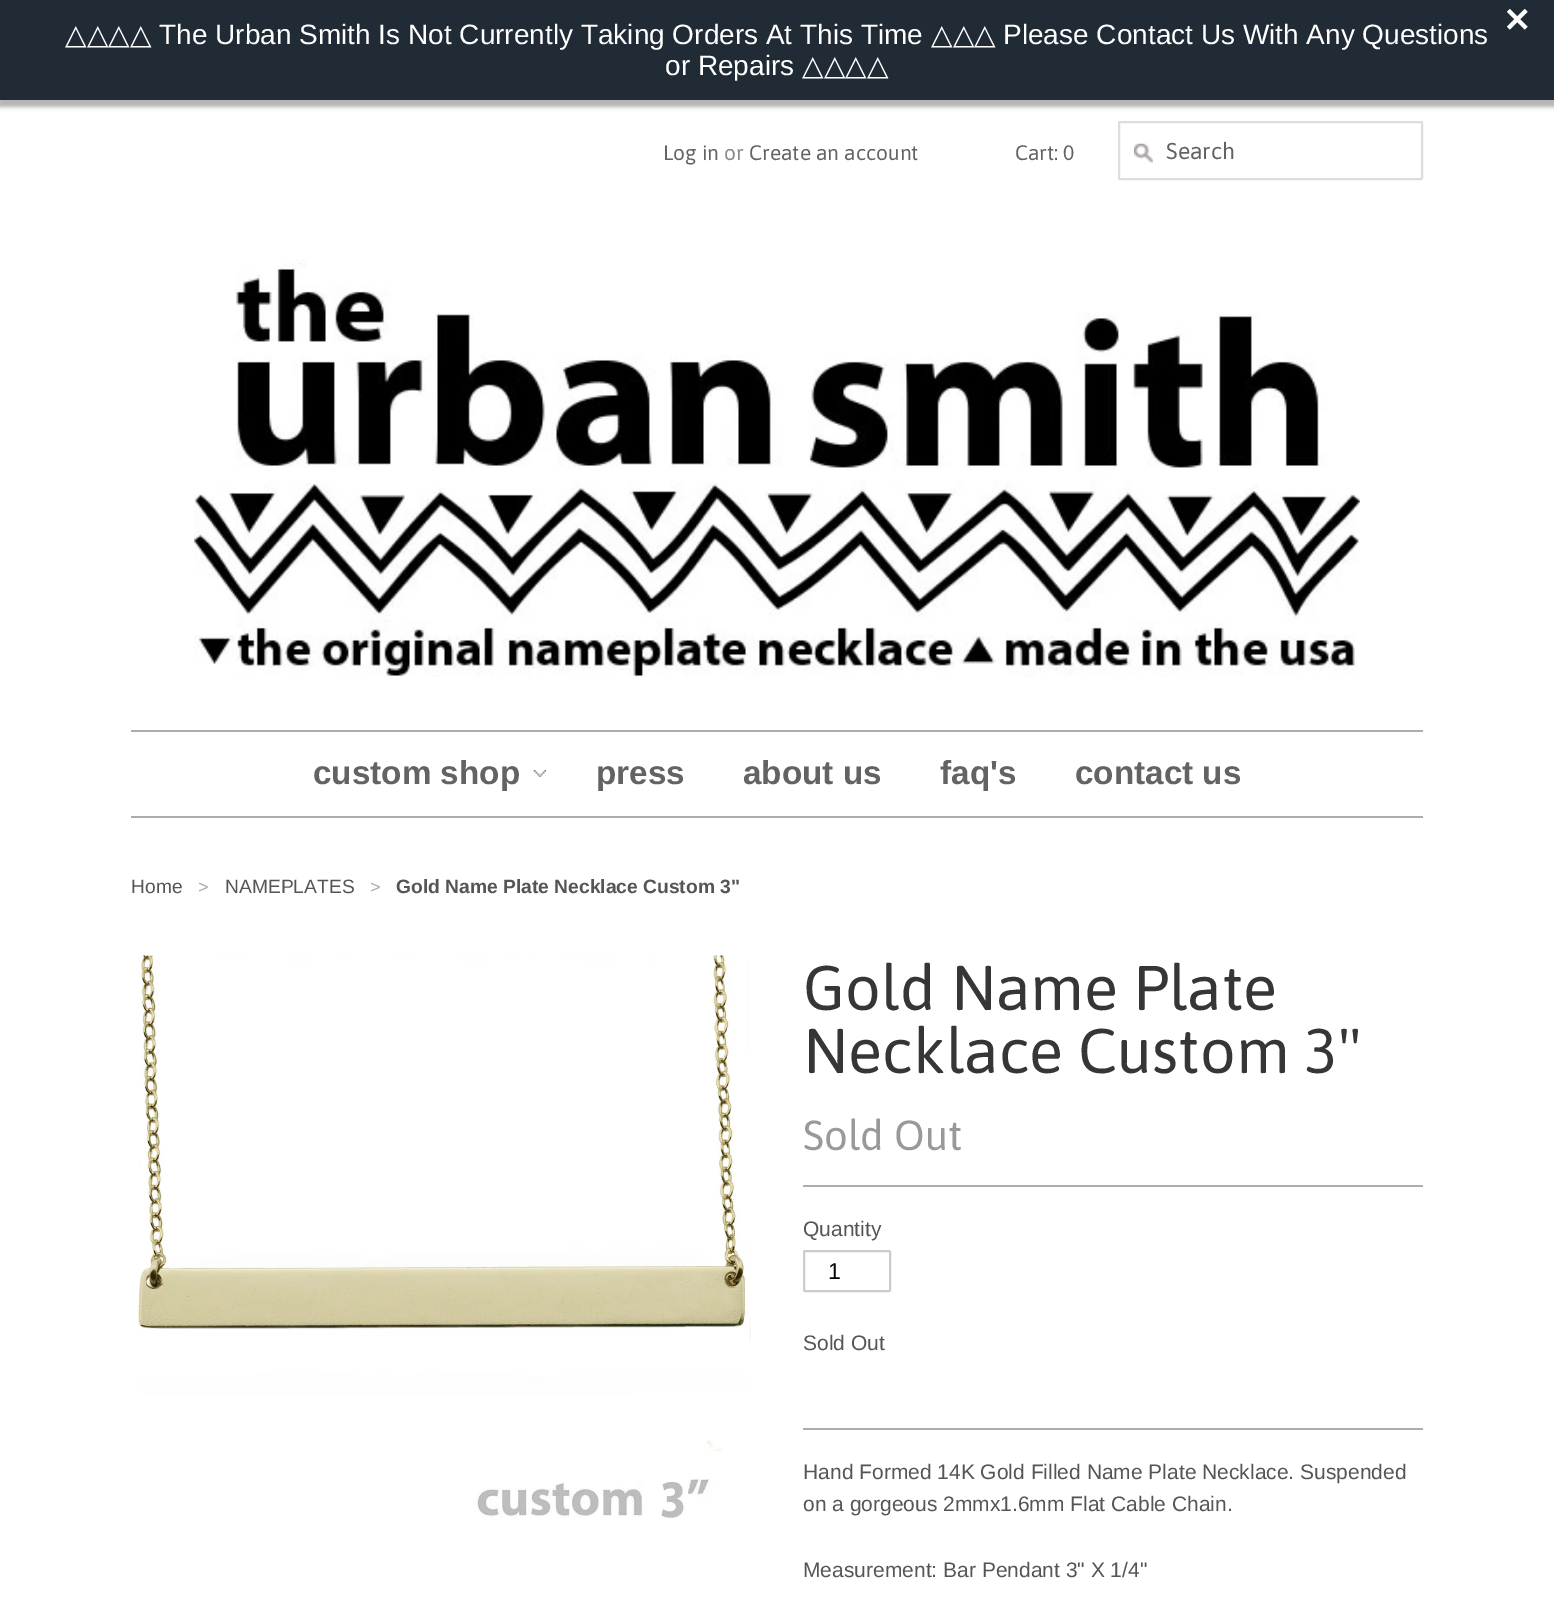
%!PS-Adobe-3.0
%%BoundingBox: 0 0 1554 1609
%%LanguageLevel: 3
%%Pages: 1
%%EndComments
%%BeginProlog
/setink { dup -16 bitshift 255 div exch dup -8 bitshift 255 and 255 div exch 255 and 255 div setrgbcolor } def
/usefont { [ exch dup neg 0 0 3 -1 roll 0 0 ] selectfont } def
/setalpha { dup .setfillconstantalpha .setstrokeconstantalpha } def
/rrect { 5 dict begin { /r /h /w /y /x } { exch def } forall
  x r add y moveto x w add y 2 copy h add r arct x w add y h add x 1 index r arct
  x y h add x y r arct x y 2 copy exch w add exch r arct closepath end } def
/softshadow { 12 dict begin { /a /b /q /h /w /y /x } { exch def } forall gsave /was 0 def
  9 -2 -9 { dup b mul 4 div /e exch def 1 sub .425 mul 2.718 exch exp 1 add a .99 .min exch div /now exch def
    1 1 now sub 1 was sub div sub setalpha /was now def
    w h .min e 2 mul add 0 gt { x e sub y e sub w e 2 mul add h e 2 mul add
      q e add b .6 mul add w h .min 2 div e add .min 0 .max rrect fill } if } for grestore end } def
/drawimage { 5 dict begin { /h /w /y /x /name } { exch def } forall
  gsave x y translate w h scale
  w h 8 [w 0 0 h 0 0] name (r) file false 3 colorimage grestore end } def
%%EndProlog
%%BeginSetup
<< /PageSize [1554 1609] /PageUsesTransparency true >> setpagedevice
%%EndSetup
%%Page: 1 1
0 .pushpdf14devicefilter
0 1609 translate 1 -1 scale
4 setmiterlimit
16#FFFFFF setink
0 0 1554 1609 rectfill
16#000000 setink
-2 4 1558 103 0 2 0.3 softshadow
16#212B35 setink
0 0 1554 100 rectfill
(img1.raw) 1507 9 21 21 drawimage
/DejaVuSans-Regular 28 usefont
16#FFFFFF setink
65 44 moveto (△△△△) show
/LiberationSans-Regular 28 usefont
159 44 moveto (The Urban Smith Is Not Currently Taking Orders At This Time) show
/DejaVuSans-Regular 28 usefont
931 44 moveto (△△△) show
/LiberationSans-Regular 28 usefont
1003 44 moveto (Please Contact Us With Any Questions) show
665 75 moveto (or Repairs) show
/DejaVuSans-Regular 28 usefont
802 75 moveto (△△△△) show
/Asap-Regular 21 usefont
16#636363 setink
663 160 moveto (Log in) show
16#888888 setink
724 160 moveto (or) show
16#636363 setink
749 160 moveto (Create an account) show
1015 160 moveto (Cart: 0) show
16#DDDDDD setink
2 setlinewidth
1119 122 303 57 1 rrect stroke
(img2.raw) 1134 143 19 20 drawimage
/Asap-Regular 23 usefont
16#636363 setink
1166 159 moveto (Search) show
(img3.raw) 194 259 1166 418 drawimage
16#ADADAD setink
131 730 1292 2 rectfill
131 816 1292 2 rectfill
(img4.raw) 533 770 13 7 drawimage
/LiberationSans-Bold 33.25 usefont
16#636363 setink
[
    [(custom shop) 313 784]
    [(press) 596 784]
    [(about us) 743 784]
    [(faq's) 940 784]
    [(contact us) 1075 784]
] { aload pop moveto show } forall
/LiberationSans-Regular 19.25 usefont
16#555555 setink
131 893 moveto (Home) show
/LiberationSans-Regular 18 usefont
16#AAAAAA setink
198 893 moveto (>) show
/LiberationSans-Regular 19.25 usefont
16#555555 setink
225 893 moveto (NAMEPLATES) show
/LiberationSans-Regular 18 usefont
16#AAAAAA setink
370 893 moveto (>) show
/LiberationSans-Bold 19.25 usefont
16#555555 setink
396 893 moveto (Gold Name Plate Necklace Custom 3") show
(img5.raw) 138 955 613 563 drawimage
/Asap-Regular 63 usefont
16#363636 setink
803 1010 moveto (Gold Name Plate) show
803 1073 moveto (Necklace Custom 3") show
/Asap-Regular 42 usefont
16#999999 setink
803 1150 moveto (Sold Out) show
16#ADADAD setink
803 1185 620 2 rectfill
803 1428 620 2 rectfill
/LiberationSans-Regular 21 usefont
16#555555 setink
803 1236 moveto (Quantity) show
16#CCCCCC setink
804 1251 86 40 1 rrect stroke
/LiberationSans-Regular 23 usefont
16#000000 setink
828 1279 moveto (1) show
/LiberationSans-Regular 21 usefont
16#555555 setink
[
    [(Sold Out) 803 1350]
    [(Hand Formed 14K Gold Filled Name Plate Necklace. Suspended) 803 1479]
    [(on a gorgeous 2mmx1.6mm Flat Cable Chain.) 803 1511]
    [(Measurement: Bar Pendant 3" X 1/4") 803 1577]
] { aload pop moveto show } forall
.poppdf14devicefilter showpage
%%EOF
